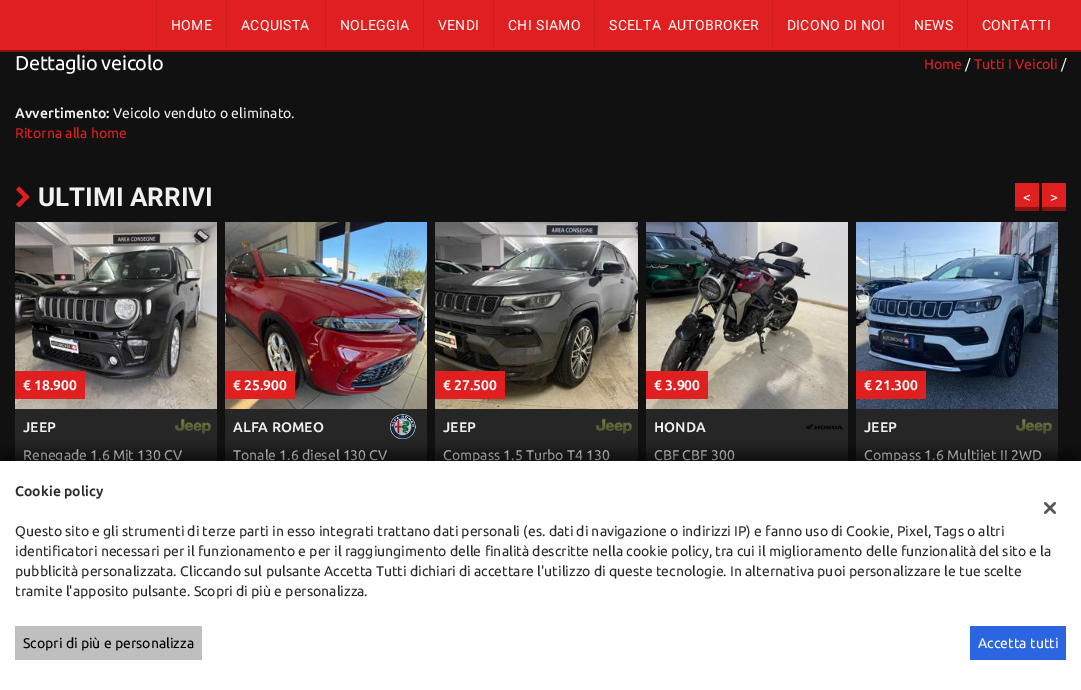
%!PS-Adobe-3.0
%%BoundingBox: 0 0 1081 690
%%LanguageLevel: 3
%%Pages: 1
%%EndComments
%%BeginProlog
/setink { dup -16 bitshift 255 div exch dup -8 bitshift 255 and 255 div exch 255 and 255 div setrgbcolor } def
/usefont { [ exch dup neg 0 0 3 -1 roll 0 0 ] selectfont } def
/setalpha { dup .setfillconstantalpha .setstrokeconstantalpha } def
/rrect { 5 dict begin { /r /h /w /y /x } { exch def } forall
  x r add y moveto x w add y 2 copy h add r arct x w add y h add x 1 index r arct
  x y h add x y r arct x y 2 copy exch w add exch r arct closepath end } def
/softshadow { 12 dict begin { /a /b /q /h /w /y /x } { exch def } forall gsave /was 0 def
  9 -2 -9 { dup b mul 4 div /e exch def 1 sub .425 mul 2.718 exch exp 1 add a .99 .min exch div /now exch def
    1 1 now sub 1 was sub div sub setalpha /was now def
    w h .min e 2 mul add 0 gt { x e sub y e sub w e 2 mul add h e 2 mul add
      q e add b .6 mul add w h .min 2 div e add .min 0 .max rrect fill } if } for grestore end } def
/drawimage { 5 dict begin { /h /w /y /x /name } { exch def } forall
  gsave x y translate w h scale
  w h 8 [w 0 0 h 0 0] name (r) file false 3 colorimage grestore end } def
%%EndProlog
%%BeginSetup
<< /PageSize [1081 690] /PageUsesTransparency true >> setpagedevice
%%EndSetup
%%Page: 1 1
0 .pushpdf14devicefilter
0 690 translate 1 -1 scale
4 setmiterlimit
16#111111 setink
0 0 1081 690 rectfill
[
    [0 50 1081 2 16#871313]
    [0 0 1081 50 16#E02020]
    [156 0 1 50 16#CF1D1D]
] { aload pop setink rectfill } forall
/Roboto-Regular 14 usefont
16#FFFFFF setink
171 30 moveto 0.25 0 (HOME) ashow
16#CF1D1D setink
226 0 1 50 rectfill
16#FFFFFF setink
241 30 moveto 0.25 0 (ACQUISTA) ashow
16#CF1D1D setink
325 0 1 50 rectfill
16#FFFFFF setink
340 30 moveto 0.25 0 (NOLEGGIA) ashow
16#CF1D1D setink
423 0 1 50 rectfill
16#FFFFFF setink
438 30 moveto 0.25 0 (VENDI) ashow
16#CF1D1D setink
493 0 1 50 rectfill
16#FFFFFF setink
508 30 moveto 1 0 32 0.25 0 (CHI SIAMO) awidthshow
16#CF1D1D setink
594 0 1 50 rectfill
16#FFFFFF setink
609 30 moveto 3 0 32 0.25 0 (SCELTA AUTOBROKER) awidthshow
16#CF1D1D setink
772 0 1 50 rectfill
16#FFFFFF setink
787 30 moveto 0.25 0 (DICONO DI NOI) ashow
16#CF1D1D setink
899 0 1 50 rectfill
16#FFFFFF setink
914 30 moveto 0.25 0 (NEWS) ashow
16#CF1D1D setink
967 0 1 50 rectfill
16#FFFFFF setink
982 30 moveto 0.25 0 (CONTATTI) ashow
/Ubuntu-Regular 20 usefont
15 70 moveto -0.4 0 (Dettaglio veicolo) ashow
/Ubuntu-Regular 14 usefont
16#E02020 setink
924 69 moveto (Home) show
16#F0F0F0 setink
965 69 moveto (/) show
16#E02020 setink
974 69 moveto (Tutti I Veicoli) show
16#F0F0F0 setink
1061 69 moveto (/) show
/Ubuntu-Bold 14 usefont
15 118 moveto (Avvertimento:) show
/Ubuntu-Regular 14 usefont
113 118 moveto (Veicolo venduto o eliminato.) show
16#E02020 setink
15 138 moveto (Ritorna alla home) show
(img1.raw) 16 186 14 22 drawimage
/Roboto-Bold 26 usefont
16#F0F0F0 setink
38 206 moveto (ULTIMI ARRIVI) show
16#E02020 setink
1015 183 24 24 rectfill
16#871313 setink
1015 207 24 4 rectfill
/Ubuntu-Regular 14 usefont
16#FFFFFF setink
1023 202 moveto (<) show
16#E02020 setink
1042 183 24 24 rectfill
16#871313 setink
1042 207 24 4 rectfill
16#FFFFFF setink
1050 202 moveto (>) show
16#262626 setink
15 409 202 52 rectfill
(img2.raw) 15 222 202 187 drawimage
16#E02020 setink
15 371 70 28 rectfill
/Ubuntu-Bold 14 usefont
16#FFFFFF setink
23 390 moveto (€ 18.900) show
16#F0F0F0 setink
23 432 moveto (JEEP) show
(img3.raw) 175 419 36 15 drawimage
/Ubuntu-Regular 14 usefont
23 460 moveto (Renegade 1.6 Mjt 130 CV) show
16#262626 setink
225 409 202 52 rectfill
(img4.raw) 225 222 202 187 drawimage
16#E02020 setink
225 371 70 28 rectfill
/Ubuntu-Bold 14 usefont
16#FFFFFF setink
233 390 moveto (€ 25.900) show
16#F0F0F0 setink
233 432 moveto (ALFA ROMEO) show
(img5.raw) 390 414 26 25 drawimage
/Ubuntu-Regular 14 usefont
233 460 moveto (Tonale 1.6 diesel 130 CV) show
16#262626 setink
435 409 203 52 rectfill
(img6.raw) 435 222 203 187 drawimage
16#E02020 setink
435 371 70 28 rectfill
/Ubuntu-Bold 14 usefont
16#FFFFFF setink
443 390 moveto (€ 27.500) show
16#F0F0F0 setink
443 432 moveto (JEEP) show
(img7.raw) 596 419 36 15 drawimage
/Ubuntu-Regular 14 usefont
443 460 moveto (Compass 1.5 Turbo T4 130) show
16#262626 setink
646 409 202 52 rectfill
(img8.raw) 646 222 202 187 drawimage
16#E02020 setink
646 371 62 28 rectfill
/Ubuntu-Bold 14 usefont
16#FFFFFF setink
654 390 moveto (€ 3.900) show
16#F0F0F0 setink
654 432 moveto (HONDA) show
(img9.raw) 805 423 38 7 drawimage
/Ubuntu-Regular 14 usefont
654 460 moveto (CBF CBF 300) show
16#262626 setink
856 409 202 52 rectfill
(img10.raw) 856 222 202 187 drawimage
16#E02020 setink
856 371 70 28 rectfill
/Ubuntu-Bold 14 usefont
16#FFFFFF setink
864 390 moveto (€ 21.300) show
16#F0F0F0 setink
864 432 moveto (JEEP) show
(img11.raw) 1016 419 36 15 drawimage
/Ubuntu-Regular 14 usefont
864 460 moveto (Compass 1.6 Multijet II 2WD) show
16#000000 setink
0 451 1081 229 0 6 0.5 softshadow
16#FFFFFF setink
0 461 1081 229 rectfill
/Ubuntu-Bold 14 usefont
16#2B2929 setink
15 496 moveto (Cookie policy) show
/Ubuntu-Regular 14 usefont
[
    [(Questo sito e gli strumenti di terze parti in esso integrati trattano dati personali \(es. dati di navigazione o indirizzi IP\) e fanno uso di Cookie, Pixel, Tags o altri) 15 536]
    [(identificatori necessari per il funzionamento e per il raggiungimento delle finalità descritte nella cookie policy, tra cui il miglioramento delle funzionalità del sito e la) 15 556]
    [(pubblicità personalizzata. Cliccando sul pulsante Accetta Tutti dichiari di accettare l'utilizzo di queste tecnologie. In alternativa puoi personalizzare le tue scelte) 15 576]
    [(tramite l'apposito pulsante. Scopri di più e personalizza.) 15 596]
] { aload pop moveto show } forall
16#BFBFBF setink
15 626 187 34 rectfill
16#000000 setink
23 648 moveto (Scopri di più e personalizza) show
16#2C65E1 setink
970 626 96 34 rectfill
16#FFFFFF setink
978 648 moveto (Accetta tutti) show
(img12.raw) 1044 502 12 12 drawimage
.poppdf14devicefilter showpage
%%EOF
